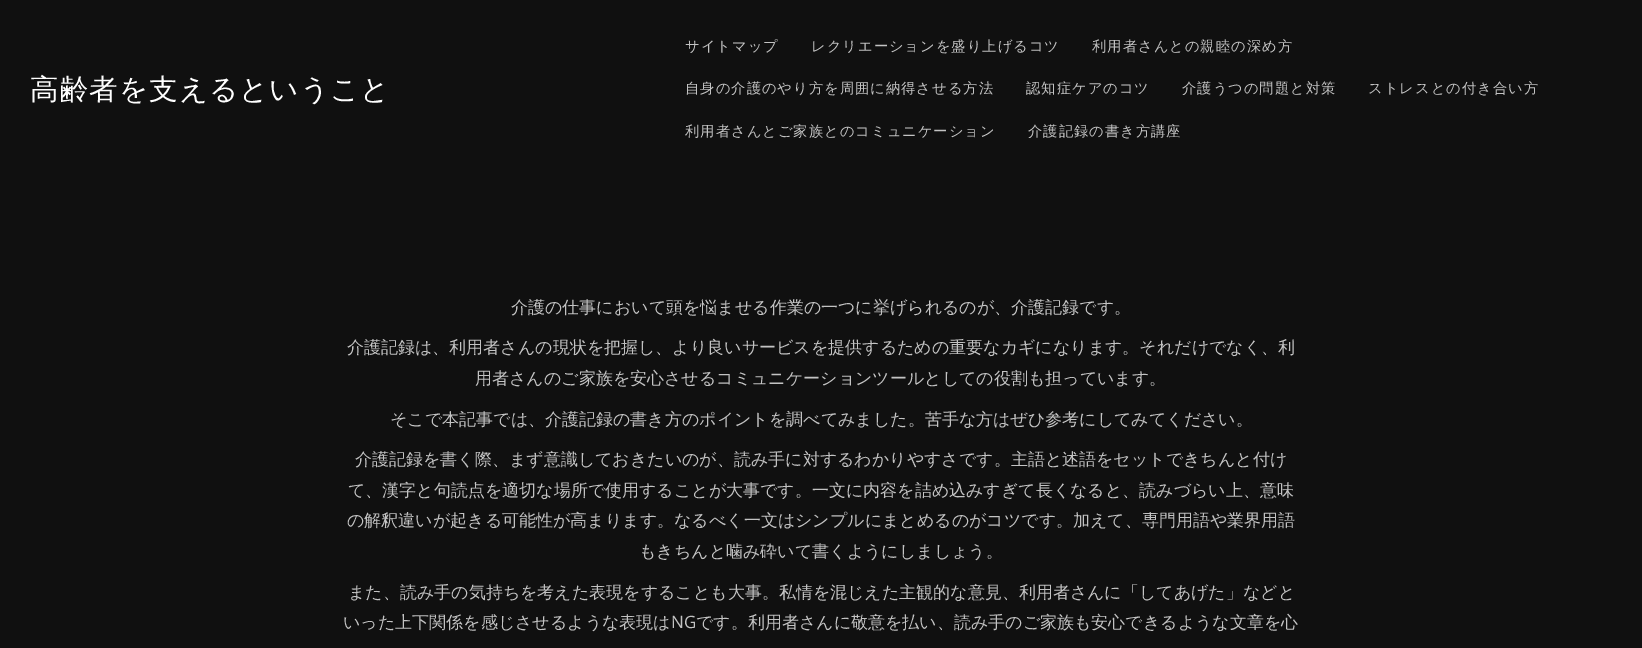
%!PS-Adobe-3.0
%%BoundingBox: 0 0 1642 648
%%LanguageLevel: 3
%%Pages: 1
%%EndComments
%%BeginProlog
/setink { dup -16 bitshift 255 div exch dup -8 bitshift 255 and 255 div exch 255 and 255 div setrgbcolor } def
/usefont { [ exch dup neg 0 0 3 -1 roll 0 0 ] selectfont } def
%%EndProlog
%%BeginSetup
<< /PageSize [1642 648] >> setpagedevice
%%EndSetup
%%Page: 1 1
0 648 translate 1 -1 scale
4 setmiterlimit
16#101010 setink
0 0 1642 648 rectfill
/WenQuanYiZenHei-Medium 28.6 usefont
16#FFFFFF setink
30 99 moveto 1 0 (高齢者を支えるということ) ashow
/WenQuanYiZenHei-Medium 14.3 usefont
16#C3C3C3 setink
685 51 moveto 1 0 (サイトマップ) ashow
811 51 moveto 1 0 (レクリエーションを盛り上げるコツ) ashow
1092 51 moveto 1 0 (利用者さんとの親睦の深め方) ashow
685 93 moveto 1 0 (自身の介護のやり方を周囲に納得させる方法) ashow
1026 93 moveto 1 0 (認知症ケアのコツ) ashow
1182 93 moveto 1 0 (介護うつの問題と対策) ashow
1368 93 moveto 1 0 (ストレスとの付き合い方) ashow
685 136 moveto 1 0 (利用者さんとご家族とのコミュニケーション) ashow
1028 136 moveto 1 0 (介護記録の書き方講座) ashow
/WenQuanYiZenHei-Medium 17 usefont
[
    [(介護の仕事において頭を悩ませる作業の一つに挙げられるのが、介護記録です。) 511 313]
    [(介護記録は、利用者さんの現状を把握し、より良いサービスを提供するための重要なカギになります。それだけでなく、利) 347 353]
    [(用者さんのご家族を安心させるコミュニケーションツールとしての役割も担っています。) 475 384]
    [(そこで本記事では、介護記録の書き方のポイントを調べてみました。苦手な方はぜひ参考にしてみてください。) 390 425]
    [(介護記録を書く際、まず意識しておきたいのが、読み手に対するわかりやすさです。主語と述語をセットできちんと付け) 355 465]
    [(て、漢字と句読点を適切な場所で使用することが大事です。一文に内容を詰め込みすぎて長くなると、読みづらい上、意味) 348 496]
    [(の解釈違いが起きる可能性が高まります。なるべく一文はシンプルにまとめるのがコツです。加えて、専門用語や業界用語) 347 526]
    [(もきちんと噛み砕いて書くようにしましょう。) 639 557]
    [(また、読み手の気持ちを考えた表現をすることも大事。私情を混じえた主観的な意見、利用者さんに「してあげた」などと) 348 598]
    [(いった上下関係を感じさせるような表現は) 343 628]
] { aload pop moveto show } forall
/OpenSans-Regular 17 usefont
671 628 moveto (NG) show
/WenQuanYiZenHei-Medium 17 usefont
696 628 moveto (です。利用者さんに敬意を払い、読み手のご家族も安心できるような文章を心) show
showpage
%%EOF
